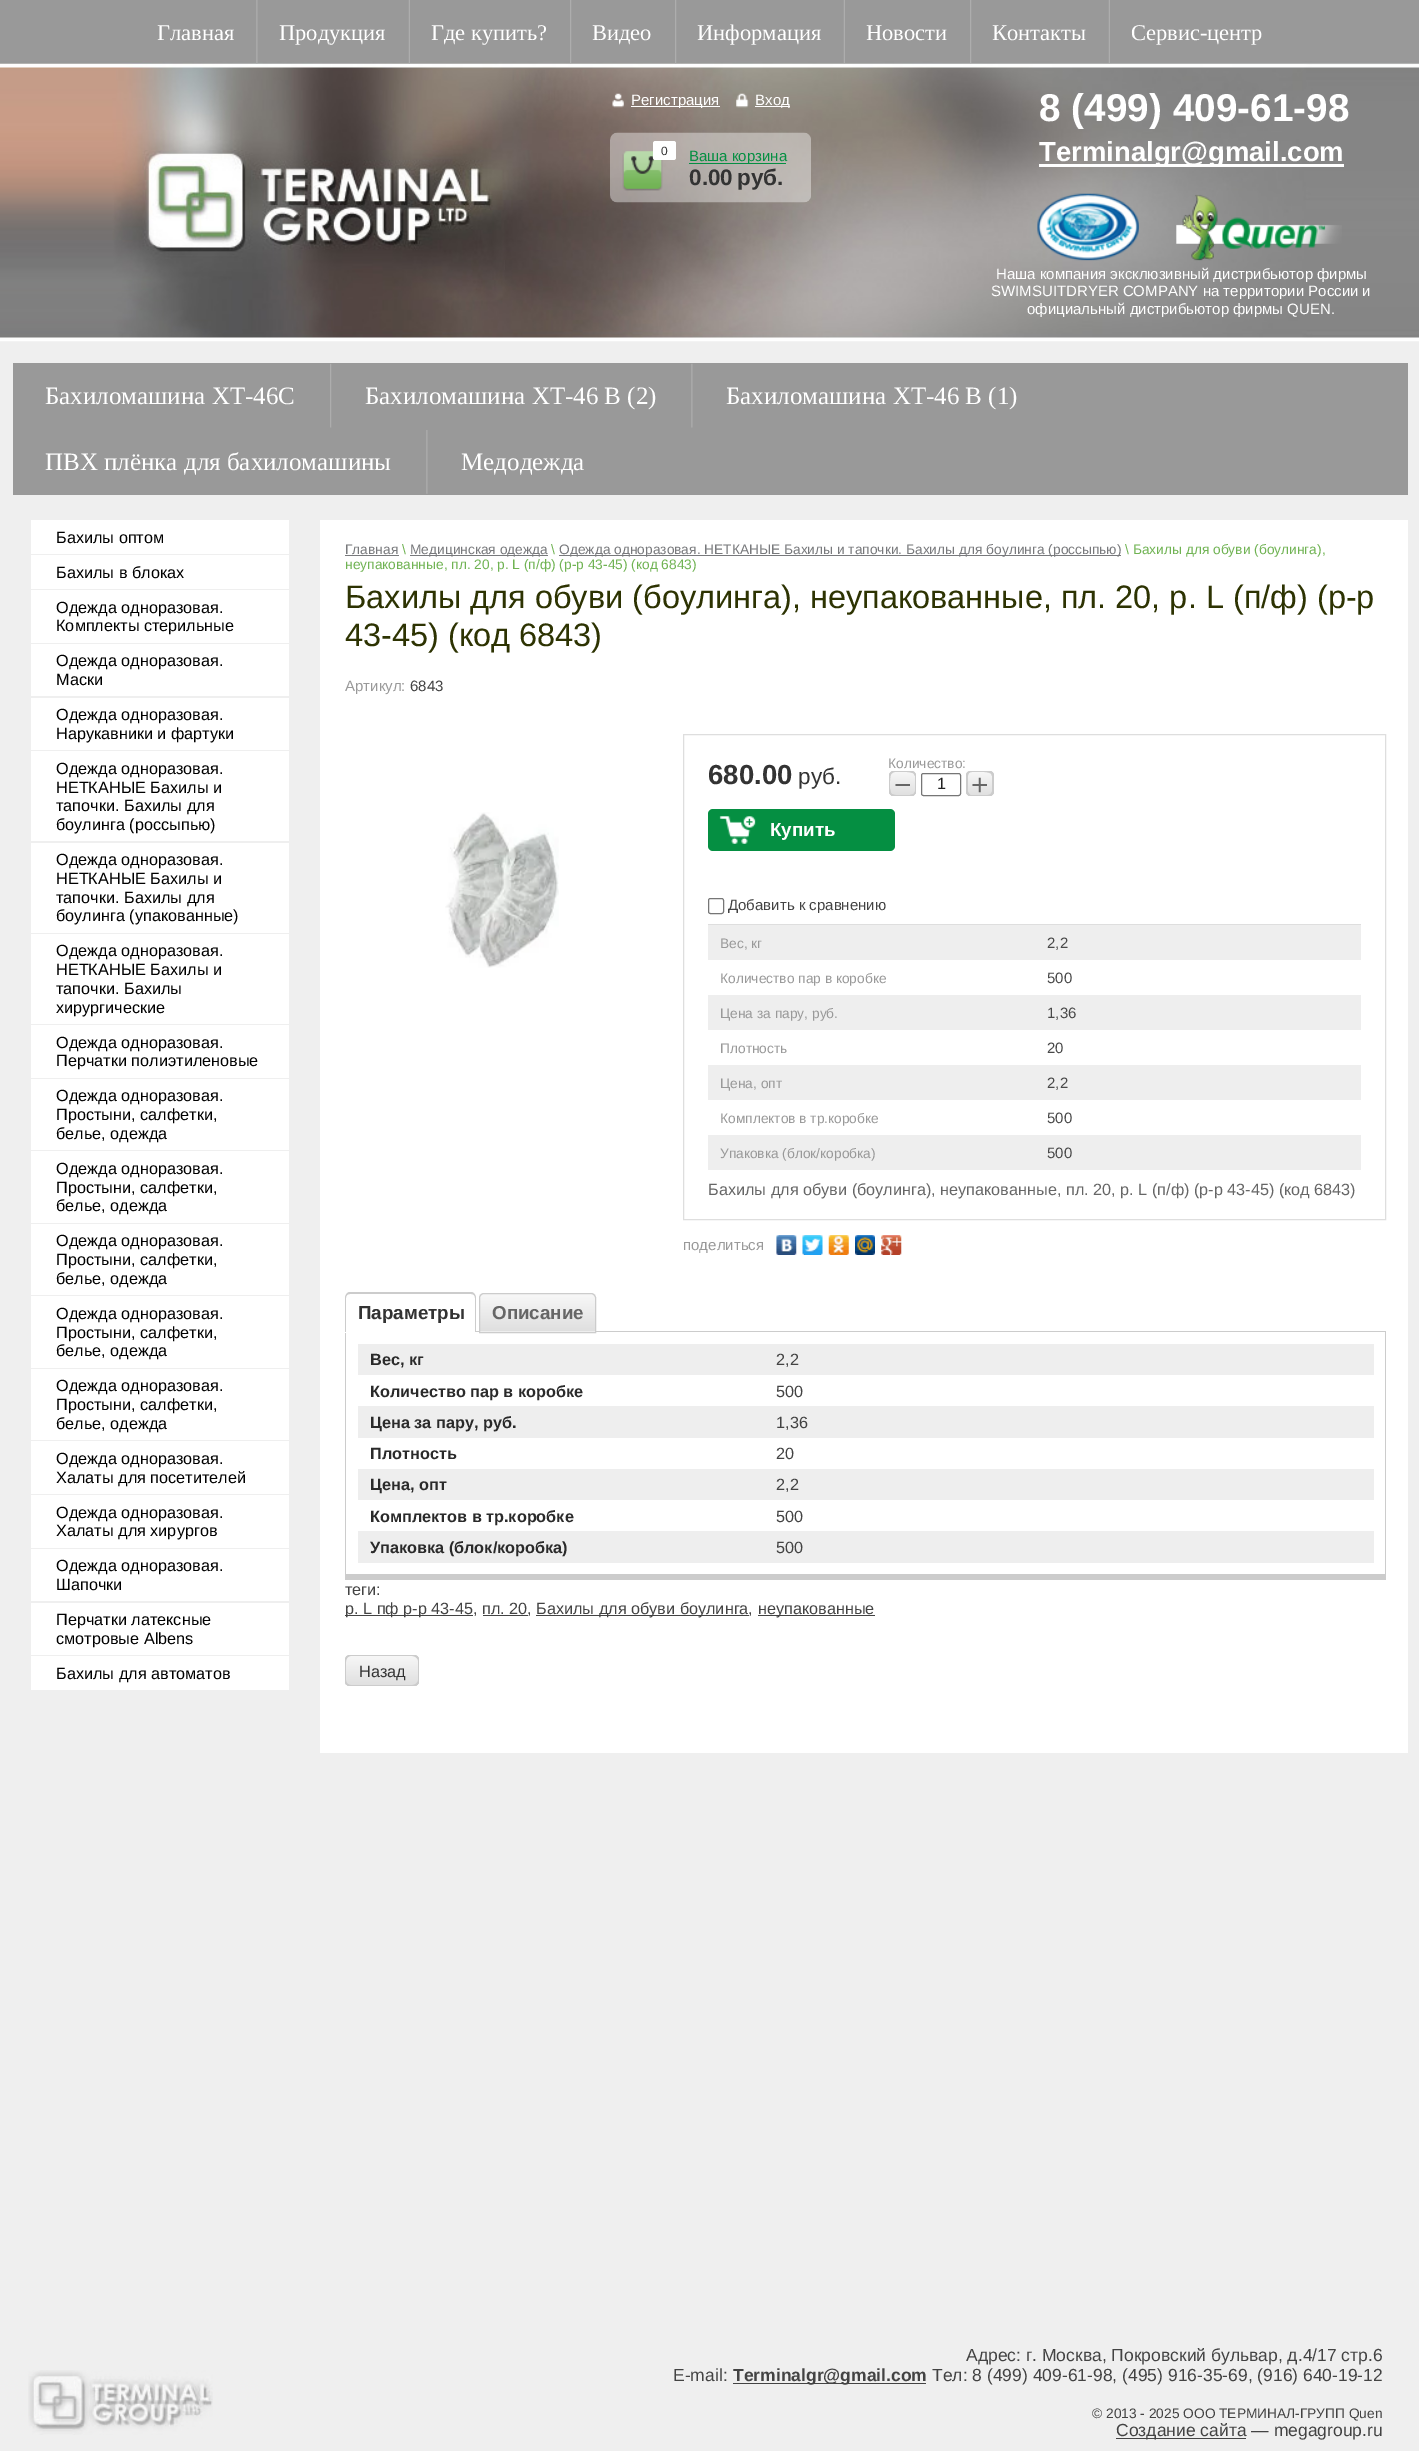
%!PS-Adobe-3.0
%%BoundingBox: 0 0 1419 2451
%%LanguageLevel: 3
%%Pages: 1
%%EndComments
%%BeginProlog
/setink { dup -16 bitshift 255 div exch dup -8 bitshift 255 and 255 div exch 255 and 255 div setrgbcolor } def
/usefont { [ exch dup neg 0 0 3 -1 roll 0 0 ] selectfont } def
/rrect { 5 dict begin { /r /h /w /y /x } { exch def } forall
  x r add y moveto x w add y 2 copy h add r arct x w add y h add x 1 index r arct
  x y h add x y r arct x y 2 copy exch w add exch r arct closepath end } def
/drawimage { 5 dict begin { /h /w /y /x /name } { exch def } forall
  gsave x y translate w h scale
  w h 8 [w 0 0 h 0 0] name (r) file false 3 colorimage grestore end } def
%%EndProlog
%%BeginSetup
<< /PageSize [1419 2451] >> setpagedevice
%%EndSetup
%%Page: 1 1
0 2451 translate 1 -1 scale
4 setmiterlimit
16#EFEFEF setink
0 0 1419 2451 rectfill
(img1.raw) 0 0 1419 342 drawimage
(img2.raw) 0 61 1419 277 drawimage
/LiberationSerif-Regular 22.5 usefont
16#FFFFFF setink
157 40 moveto (Главная) show
(img3.raw) 256 0 2 64 drawimage
279 40 moveto (Продукция) show
(img4.raw) 408 0 2 64 drawimage
431 40 moveto (Где купить?) show
(img5.raw) 570 0 2 63 drawimage
592 40 moveto (Видео) show
(img6.raw) 675 0 2 64 drawimage
697 40 moveto (Информация) show
(img7.raw) 843 0 2 63 drawimage
866 40 moveto (Новости) show
(img8.raw) 970 0 2 63 drawimage
992 40 moveto (Контакты) show
(img9.raw) 1108 0 2 63 drawimage
1131 40 moveto (Сервис-центр) show
(img10.raw) 612 93 12 15 drawimage
631 106 89 1 rectfill
/LiberationSans-Regular 15 usefont
631 105 moveto (Регистрация) show
(img11.raw) 736 93 13 15 drawimage
755 106 35 1 rectfill
755 105 moveto (Вход) show
/LiberationSans-Bold 38.75 usefont
1039 121 moveto (8 \(499\) 409-61-98) show
1039 164 305 3 rectfill
/LiberationSans-Bold 27.5 usefont
1039 161 moveto (Terminalgr@gmail.com) show
(img12.raw) 610 132 201 71 drawimage
(img13.raw) 622 151 41 40 drawimage
653 141 23 19 2.5 rrect fill
/LiberationSans-Regular 12 usefont
16#333333 setink
661 155 moveto (0) show
16#058F42 setink
689 163 97 1 rectfill
/LiberationSans-Regular 15 usefont
689 161 moveto (Ваша корзина) show
/LiberationSans-Bold 22.5 usefont
16#333333 setink
689 185 moveto (0.00) show
737 185 moveto (руб.) show
(img14.raw) 1037 193 305 68 drawimage
/LiberationSans-Regular 15 usefont
16#FFFFFF setink
[
    [(Наша компания эксклюзивный дистрибьютор фирмы) 996 279]
    [(SWIMSUITDRYER COMPANY на территории России и) 991 296]
    [(официальный дистрибьютор фирмы QUEN.) 1027 314]
] { aload pop moveto show } forall
16#999999 setink
13 363 1395 132 rectfill
/LiberationSerif-Regular 25 usefont
16#FFFFFF setink
45 404 moveto (Бахиломашина XT-46C) show
(img15.raw) 330 363 2 65 drawimage
365 404 moveto (Бахиломашина XT-46 В \(2\)) show
(img16.raw) 691 363 2 65 drawimage
726 404 moveto (Бахиломашина XT-46 В \(1\)) show
45 470 moveto (ПВХ плёнка для бахиломашины) show
(img17.raw) 426 430 2 64 drawimage
461 470 moveto (Медодежда) show
31 520 258 34 rectfill
/LiberationSans-Regular 16.25 usefont
16#000000 setink
56 543 moveto (Бахилы оптом) show
16#FFFFFF setink
31 555 258 34 rectfill
16#000000 setink
56 578 moveto (Бахилы в блоках) show
16#FFFFFF setink
31 590 258 53 rectfill
16#000000 setink
56 613 moveto (Одежда одноразовая.) show
56 631 moveto (Комплекты стерильные) show
16#FFFFFF setink
31 644 258 52 rectfill
16#000000 setink
56 666 moveto (Одежда одноразовая.) show
56 685 moveto (Маски) show
16#FFFFFF setink
31 698 258 52 rectfill
16#000000 setink
56 720 moveto (Одежда одноразовая.) show
56 739 moveto (Нарукавники и фартуки) show
16#FFFFFF setink
31 751 258 90 rectfill
16#000000 setink
[
    [(Одежда одноразовая.) 56 774]
    [(НЕТКАНЫЕ Бахилы и) 56 793]
    [(тапочки. Бахилы для) 56 811]
    [(боулинга \(россыпью\)) 56 830]
] { aload pop moveto show } forall
16#FFFFFF setink
31 843 258 90 rectfill
16#000000 setink
[
    [(Одежда одноразовая.) 56 865]
    [(НЕТКАНЫЕ Бахилы и) 56 884]
    [(тапочки. Бахилы для) 56 903]
    [(боулинга \(упакованные\)) 56 921]
] { aload pop moveto show } forall
16#FFFFFF setink
31 934 258 90 rectfill
16#000000 setink
[
    [(Одежда одноразовая.) 56 956]
    [(НЕТКАНЫЕ Бахилы и) 56 975]
    [(тапочки. Бахилы) 56 994]
    [(хирургические) 56 1013]
] { aload pop moveto show } forall
16#FFFFFF setink
31 1025 258 53 rectfill
16#000000 setink
56 1048 moveto (Одежда одноразовая.) show
56 1066 moveto (Перчатки полиэтиленовые) show
16#FFFFFF setink
31 1079 258 71 rectfill
16#000000 setink
[
    [(Одежда одноразовая.) 56 1101]
    [(Простыни, салфетки,) 56 1120]
    [(белье, одежда) 56 1139]
] { aload pop moveto show } forall
16#FFFFFF setink
31 1151 258 72 rectfill
16#000000 setink
[
    [(Одежда одноразовая.) 56 1174]
    [(Простыни, салфетки,) 56 1193]
    [(белье, одежда) 56 1211]
] { aload pop moveto show } forall
16#FFFFFF setink
31 1224 258 71 rectfill
16#000000 setink
[
    [(Одежда одноразовая.) 56 1246]
    [(Простыни, салфетки,) 56 1265]
    [(белье, одежда) 56 1284]
] { aload pop moveto show } forall
16#FFFFFF setink
31 1296 258 72 rectfill
16#000000 setink
[
    [(Одежда одноразовая.) 56 1319]
    [(Простыни, салфетки,) 56 1338]
    [(белье, одежда) 56 1356]
] { aload pop moveto show } forall
16#FFFFFF setink
31 1369 258 71 rectfill
16#000000 setink
[
    [(Одежда одноразовая.) 56 1391]
    [(Простыни, салфетки,) 56 1410]
    [(белье, одежда) 56 1429]
] { aload pop moveto show } forall
16#FFFFFF setink
31 1441 258 53 rectfill
16#000000 setink
56 1464 moveto (Одежда одноразовая.) show
56 1483 moveto (Халаты для посетителей) show
16#FFFFFF setink
31 1495 258 53 rectfill
16#000000 setink
56 1518 moveto (Одежда одноразовая.) show
56 1536 moveto (Халаты для хирургов) show
16#FFFFFF setink
31 1549 258 52 rectfill
16#000000 setink
56 1571 moveto (Одежда одноразовая.) show
56 1590 moveto (Шапочки) show
16#FFFFFF setink
31 1603 258 52 rectfill
16#000000 setink
56 1625 moveto (Перчатки латексные) show
56 1644 moveto (смотровые Albens) show
16#FFFFFF setink
31 1656 258 34 rectfill
16#000000 setink
56 1679 moveto (Бахилы для автоматов) show
16#FFFFFF setink
320 520 1088 1233 rectfill
/LiberationSans-Regular 13.75 usefont
16#78797C setink
345 554 moveto (Главная) show
345 555 54 1 rectfill
16#70B353 setink
402 554 moveto (\\) show
16#78797C setink
410 555 138 1 rectfill
410 554 moveto (Медицинская одежда) show
16#70B353 setink
551 554 moveto (\\) show
16#78797C setink
559 555 562 1 rectfill
559 554 moveto (Одежда одноразовая. НЕТКАНЫЕ Бахилы и тапочки. Бахилы для боулинга \(россыпью\)) show
16#70B353 setink
1125 554 moveto (\\ Бахилы для обуви \(боулинга\),) show
345 569 moveto (неупакованные, пл. 20, р. L \(п/ф\) \(р-р 43-45\) \(код 6843\)) show
/LiberationSans-Regular 32.5 usefont
16#2D3302 setink
345 608 moveto (Бахилы для обуви \(боулинга\), неупакованные, пл. 20, р. L \(п/ф\) \(р-р) show
345 646 moveto (43-45\) \(код 6843\)) show
/LiberationSans-Regular 15 usefont
16#999999 setink
345 691 moveto (Артикул:) show
16#434343 setink
410 691 moveto (6843) show
(img18.raw) 445 812 114 156 drawimage
16#DEDEDE setink
683.5 734.5 702 485 rectstroke
/LiberationSans-Bold 27.5 usefont
16#333333 setink
708 784 moveto (680.00) show
/LiberationSans-Regular 22.5 usefont
798 784 moveto (руб.) show
/LiberationSans-Regular 13.75 usefont
16#999999 setink
888 768 moveto (Количество:) show
gsave 889 771 27 25 5 rrect clip newpath
<< /ShadingType 2 /ColorSpace /DeviceRGB /Coords [903 771 903 796] /Extend [true true] /Function << /FunctionType 2 /Domain [0 1] /C0 [0.973 0.973 0.973] /C1 [0.875 0.875 0.875] /N 1 >> >> shfill grestore
16#CCCCCC setink
891.5 772 moveto 890 772.5 889 774 889 776 curveto 889 791 lineto 889 794 891 796 894 796 curveto 911 796 lineto 912.5 796 914 795.5 914.5 794.5 curveto 911 795.5 906.5 795 902.5 795 curveto 900 795 895.5 795.5 893.5 794.5 curveto 892 794 lineto 890.5 793 890.5 791 890 789.5 curveto 890 776 lineto 890 774.5 890.5 773 891.5 772 curveto closepath fill
892 772 moveto 896.5 772 910.5 771 913.5 773.5 curveto 914 774 914.5 775 915 776 curveto 915 777 915.5 792.5 915 794 curveto 915.5 793.5 916 792 916 791 curveto 916 776 lineto 916 773 914 771 911 771 curveto 894 771 lineto 893 771 891.5 771.5 891 772 curveto closepath fill
891 795 moveto 891.5 795.5 893 796 894 796 curveto 911 796 lineto 914 796 916 794 916 791 curveto 916 776 lineto 916 774.5 915.5 773.5 914.5 772.5 curveto 915 775 lineto 915.5 777.5 915 790.5 915 791.5 curveto 914.5 792.5 914 793 913.5 794 curveto 912.5 794.5 911 794.5 910 795 curveto closepath fill
895 772 moveto 910 772 lineto 912 772 913.5 772.5 915 773 curveto 914 771.5 912.5 771 911 771 curveto 894 771 lineto 891 771 889 773 889 776 curveto 889 791 lineto 889 792.5 890 794 891 795 curveto 889.5 792 889.5 777.5 891 774.5 curveto 892 773 893 772 895 772 curveto closepath fill
/LiberationSans-Regular 30 usefont
16#666666 setink
894 795 moveto (−) show
16#767676 setink
921.5 773.5 39 22 2 rrect stroke
/LiberationSans-Regular 16.25 usefont
16#222222 setink
937 789 moveto (1) show
gsave 966 771 28 25 5 rrect clip newpath
<< /ShadingType 2 /ColorSpace /DeviceRGB /Coords [980 771 980 796] /Extend [true true] /Function << /FunctionType 2 /Domain [0 1] /C0 [0.973 0.973 0.973] /C1 [0.875 0.875 0.875] /N 1 >> >> shfill grestore
16#CCCCCC setink
968.5 771.5 moveto 967 772.5 966 774 966 776 curveto 966 791 lineto 966 794 968 796 971 796 curveto 989 796 lineto 990.5 796 992 795 993 794 curveto 989.5 796 983 795 979.5 795 curveto 970.5 795 lineto 969.5 794 lineto 968 793 968 791.5 967.5 790.5 curveto 968 782 lineto 967.5 775 lineto 968 774 968 772.5 968.5 771.5 curveto closepath fill
970 772 moveto 974 772 988 771 990.5 773.5 curveto 991.5 774 991.5 775 992 776 curveto 992 792.5 lineto 991.5 795.5 lineto 993 794.5 994 793 994 791 curveto 994 776 lineto 994 773 992 771 989 771 curveto 971 771 lineto 969 771 967.5 772 966.5 773.5 curveto 967.5 772.5 968.5 772 970 772 curveto closepath fill
967 794 moveto 968 795 969.5 796 971 796 curveto 989 796 lineto 992 796 994 794 994 791 curveto 994 776 lineto 994 774 992.5 772 991 771.5 curveto 991.5 772 992 773 992 774 curveto 992.5 775.5 992 791 992 791.5 curveto 991.5 792.5 991.5 793 990.5 794 curveto 988 796 981 795 977.5 795 curveto 975 795 969 796 967 794 curveto closepath fill
972 772 moveto 987 772 lineto 990 772 992 772.5 993.5 773.5 curveto 992.5 772 991 771 989 771 curveto 971 771 lineto 968 771 966 773 966 776 curveto 966 791 lineto 966 793 967 794.5 968.5 795.5 curveto 967.5 791.5 lineto 968 785 lineto 967.5 777 lineto 968.5 774 lineto 969 772.5 970.5 772 972 772 curveto closepath fill
/LiberationSans-Regular 30 usefont
16#666666 setink
971 795 moveto (+) show
16#058F42 setink
708 809 187 42 5 rrect fill
(img19.raw) 719 816 37 28 drawimage
/LiberationSans-Bold 18.75 usefont
16#FFFFFF setink
770 836 moveto (Купить) show
16#DEDEDE setink
708 924 653 1 rectfill
16#767676 setink
708.5 898.5 15 15 2 rrect stroke
/LiberationSans-Regular 15 usefont
16#434343 setink
728 910 moveto (Добавить к сравнению) show
16#EEEEEE setink
708 925 653 35 rectfill
/LiberationSans-Regular 13.75 usefont
16#999999 setink
720 948 moveto (Вес, кг) show
/LiberationSans-Regular 15 usefont
16#494949 setink
1047 948 moveto (2,2) show
/LiberationSans-Regular 13.75 usefont
16#999999 setink
720 983 moveto (Количество пар в коробке) show
/LiberationSans-Regular 15 usefont
16#494949 setink
1047 983 moveto (500) show
16#EEEEEE setink
708 995 653 35 rectfill
/LiberationSans-Regular 13.75 usefont
16#999999 setink
720 1018 moveto (Цена за пару, руб.) show
/LiberationSans-Regular 15 usefont
16#494949 setink
1047 1018 moveto (1,36) show
/LiberationSans-Regular 13.75 usefont
16#999999 setink
720 1053 moveto (Плотность) show
/LiberationSans-Regular 15 usefont
16#494949 setink
1047 1053 moveto (20) show
16#EEEEEE setink
708 1065 653 35 rectfill
/LiberationSans-Regular 13.75 usefont
16#999999 setink
720 1088 moveto (Цена, опт) show
/LiberationSans-Regular 15 usefont
16#494949 setink
1047 1088 moveto (2,2) show
/LiberationSans-Regular 13.75 usefont
16#999999 setink
720 1123 moveto (Комплектов в тр.коробке) show
/LiberationSans-Regular 15 usefont
16#494949 setink
1047 1123 moveto (500) show
16#EEEEEE setink
708 1135 653 35 rectfill
/LiberationSans-Regular 13.75 usefont
16#999999 setink
720 1158 moveto (Упаковка \(блок/коробка\)) show
/LiberationSans-Regular 15 usefont
16#494949 setink
1047 1158 moveto (500) show
/LiberationSans-Regular 16.25 usefont
16#666666 setink
708 1195 moveto (Бахилы для обуви \(боулинга\), неупакованные, пл. 20, р. L \(п/ф\) \(р-р 43-45\) \(код 6843\)) show
/LiberationSans-Regular 15 usefont
16#999999 setink
683 1250 moveto (поделиться) show
(img20.raw) 776 1235 21 20 drawimage
(img21.raw) 802 1235 21 20 drawimage
(img22.raw) 828 1235 21 20 drawimage
(img23.raw) 855 1235 20 20 drawimage
(img24.raw) 881 1235 21 20 drawimage
[
    [476 1331 910 1 16#CCCCCC]
    [1385 1331 1 249 16#CCCCCC]
    [345 1574 1041 6 16#CCCCCC]
    [345 1331 1 249 16#CCCCCC]
] { aload pop setink rectfill } forall
16#FFFFFF setink
350 1293 moveto 471 1293 lineto 474 1293 476 1295 476 1298 curveto 476 1333 lineto 345 1333 lineto 345 1298 lineto 345 1295 347 1293 350 1293 curveto closepath fill
16#CCCCCC setink
350 1292 moveto 471 1292 lineto 474 1292 476 1295 476 1298 curveto 476 1332 lineto 345 1332 lineto 345 1298 lineto 345 1295 347 1292 350 1292 curveto closepath 350 1294 moveto 471 1294 lineto 473 1294 475 1295 475 1298 curveto 475 1332 lineto 346 1332 lineto 346 1298 lineto 346 1295 348 1294 350 1294 curveto closepath eofill
/LiberationSans-Bold 18.75 usefont
16#333333 setink
358 1319 moveto (Параметры) show
16#EEEEEE setink
484 1293 moveto 591 1293 lineto 594 1293 596 1295 596 1298 curveto 596 1333 lineto 479 1333 lineto 479 1298 lineto 479 1295 481 1293 484 1293 curveto closepath fill
gsave
484 1293 moveto 591 1293 lineto 594 1293 596 1295 596 1298 curveto 596 1333 lineto 479 1333 lineto 479 1298 lineto 479 1295 481 1293 484 1293 curveto closepath clip newpath
gsave 479 1294 moveto 596 1294 lineto 596 1331 lineto 479 1331 lineto closepath clip newpath
<< /ShadingType 2 /ColorSpace /DeviceRGB /Coords [538 1294 538 1331] /Extend [true true] /Function << /FunctionType 2 /Domain [0 1] /C0 [0.973 0.973 0.973] /C1 [0.875 0.875 0.875] /N 1 >> >> shfill grestore
grestore
16#CCCCCC setink
484 1293.5 moveto 591 1293.5 lineto 593.5 1293.5 595.5 1295.5 595.5 1298 curveto 595.5 1332.5 lineto 479.5 1332.5 lineto 479.5 1298 lineto 479.5 1295.5 481.5 1293.5 484 1293.5 curveto closepath stroke
16#666666 setink
492 1319 moveto (Описание) show
16#EEEEEE setink
358 1344 1016 31 rectfill
/LiberationSans-Bold 16.25 usefont
16#2A2A2A setink
370 1365 moveto (Вес, кг) show
/LiberationSans-Regular 16.25 usefont
16#434343 setink
776 1365 moveto (2,2) show
/LiberationSans-Bold 16.25 usefont
16#2A2A2A setink
370 1397 moveto (Количество пар в коробке) show
/LiberationSans-Regular 16.25 usefont
16#434343 setink
776 1397 moveto (500) show
16#EEEEEE setink
358 1406 1016 32 rectfill
/LiberationSans-Bold 16.25 usefont
16#2A2A2A setink
370 1428 moveto (Цена за пару, руб.) show
/LiberationSans-Regular 16.25 usefont
16#434343 setink
776 1428 moveto (1,36) show
/LiberationSans-Bold 16.25 usefont
16#2A2A2A setink
370 1459 moveto (Плотность) show
/LiberationSans-Regular 16.25 usefont
16#434343 setink
776 1459 moveto (20) show
16#EEEEEE setink
358 1469 1016 31 rectfill
/LiberationSans-Bold 16.25 usefont
16#2A2A2A setink
370 1490 moveto (Цена, опт) show
/LiberationSans-Regular 16.25 usefont
16#434343 setink
776 1490 moveto (2,2) show
/LiberationSans-Bold 16.25 usefont
16#2A2A2A setink
370 1522 moveto (Комплектов в тр.коробке) show
/LiberationSans-Regular 16.25 usefont
16#434343 setink
776 1522 moveto (500) show
16#EEEEEE setink
358 1531 1016 32 rectfill
/LiberationSans-Bold 16.25 usefont
16#2A2A2A setink
370 1553 moveto (Упаковка \(блок/коробка\)) show
/LiberationSans-Regular 16.25 usefont
16#434343 setink
776 1553 moveto (500) show
345 1595 moveto (теги:) show
345 1615 128 1 rectfill
345 1614 moveto (р. L пф р-р 43-45, пл. 20,) show
536 1615 213 1 rectfill
536 1614 moveto (Бахилы для обуви боулинга,) show
758 1615 117 1 rectfill
758 1614 moveto (неупакованные) show
483 1615 45 1 rectfill
gsave 345 1655 74 31 5 rrect clip newpath
<< /ShadingType 2 /ColorSpace /DeviceRGB /Coords [382 1655 382 1686] /Extend [true true] /Function << /FunctionType 2 /Domain [0 1] /C0 [0.973 0.973 0.973] /C1 [0.875 0.875 0.875] /N 1 >> >> shfill grestore
16#CCCCCC setink
347 1656 moveto 346 1657 345 1659 345 1660 curveto 345 1681 lineto 345 1684 347 1686 350 1686 curveto 414 1686 lineto 415 1686 417 1685 418 1684 curveto 415 1685 lineto 351 1685 lineto 348 1685 346 1683 346 1680 curveto 346 1659 lineto closepath fill
349 1656 moveto 412 1656 lineto 415 1656 418 1658 418 1661 curveto 418 1682 lineto 417 1685 lineto 418 1684 419 1683 419 1681 curveto 419 1660 lineto 419 1657 417 1655 414 1655 curveto 350 1655 lineto 349 1655 347 1656 346 1657 curveto closepath fill
346 1684 moveto 347 1685 349 1686 350 1686 curveto 414 1686 lineto 417 1686 419 1684 419 1681 curveto 419 1660 lineto 419 1658 418 1656 416 1656 curveto 417 1656 418 1658 418 1659 curveto 418 1680 lineto 418 1683 415 1685 412 1685 curveto 349 1685 lineto closepath fill
351 1656 moveto 415 1656 lineto 418 1657 lineto 417 1656 415 1655 414 1655 curveto 350 1655 lineto 347 1655 345 1657 345 1660 curveto 345 1681 lineto 345 1682 346 1684 346 1685 curveto 345 1681 346 1675 346 1672 curveto 346 1667 344 1656 351 1656 curveto closepath fill
16#333333 setink
359 1677 moveto (Назад) show
(img25.raw) 28 2370 185 65 drawimage
/LiberationSans-Regular 17.5 usefont
16#434343 setink
966 2361 moveto (Адрес: г. Москва, Покровский бульвар, д.4/17 стр.6) show
673 2381 moveto (E-mail:) show
733 2383 193 1 rectfill
/LiberationSans-Bold 17.5 usefont
733 2381 moveto (Terminalgr@gmail.com) show
/LiberationSans-Regular 17.5 usefont
932 2381 moveto (Тел: 8 \(499\) 409-61-98, \(495\) 916-35-69, \(916\) 640-19-12) show
/LiberationSans-Regular 13.75 usefont
1092 2418 moveto (© 2013 - 2025 ООО ТЕРМИНАЛ-ГРУПП Quen) show
1116 2438 130 1 rectfill
/LiberationSans-Regular 17.5 usefont
1116 2436 moveto (Создание сайта — megagroup.ru) show
showpage
%%EOF
